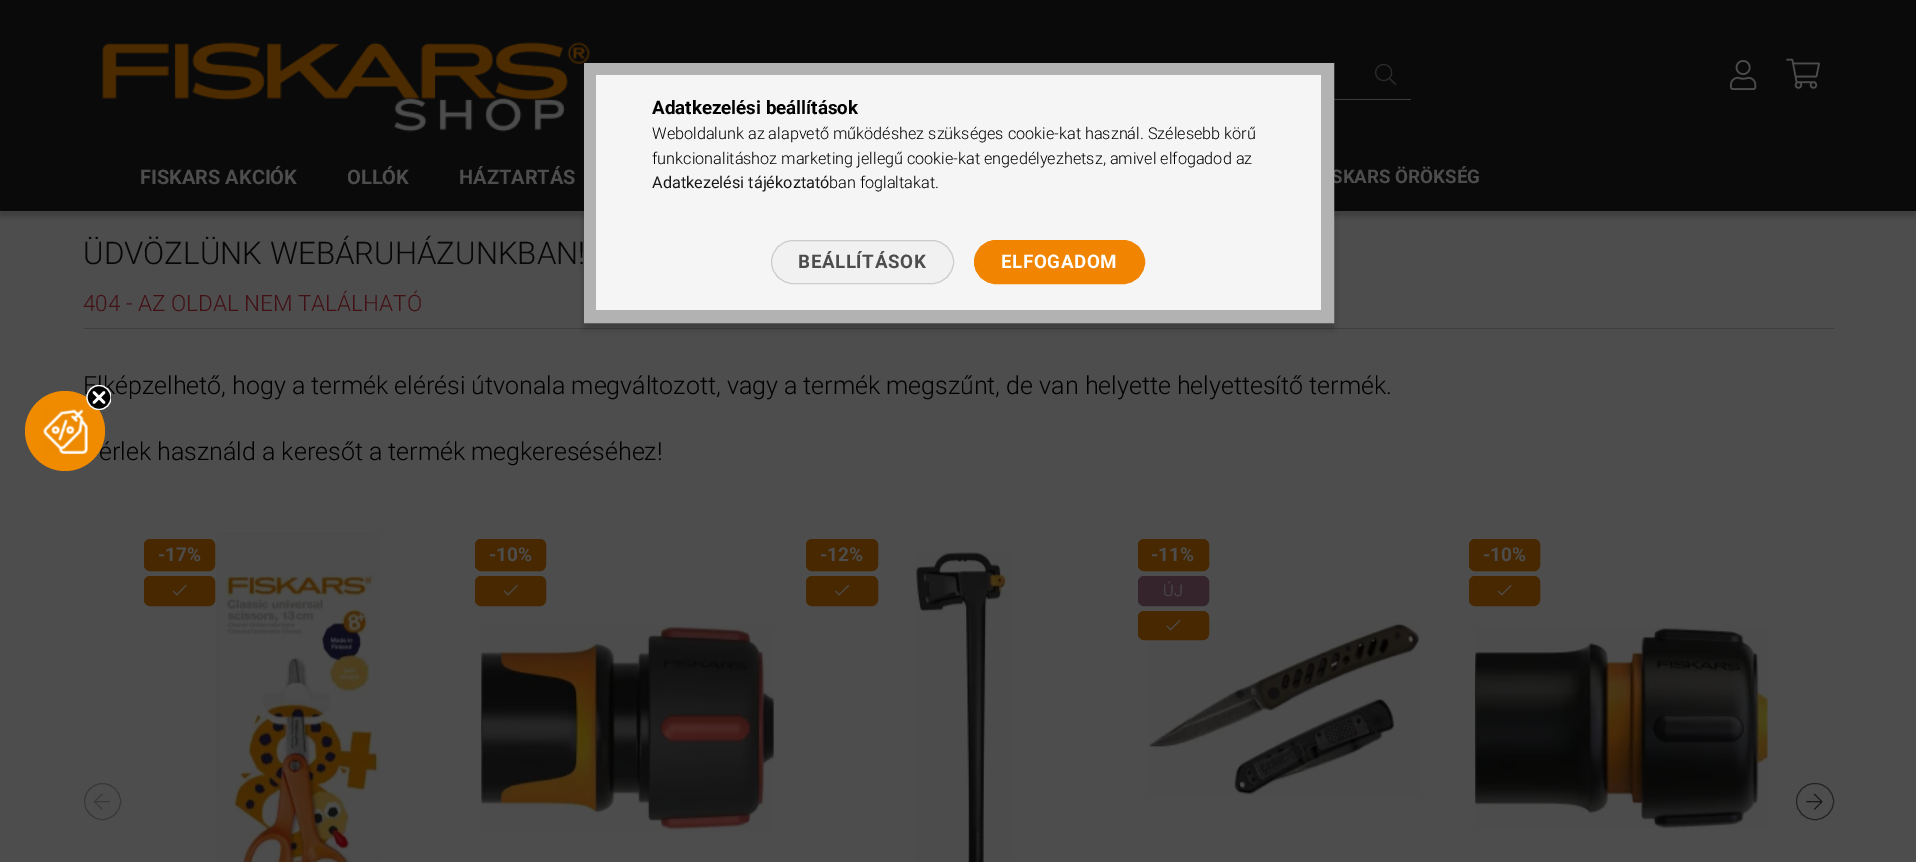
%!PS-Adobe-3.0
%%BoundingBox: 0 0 1916 862
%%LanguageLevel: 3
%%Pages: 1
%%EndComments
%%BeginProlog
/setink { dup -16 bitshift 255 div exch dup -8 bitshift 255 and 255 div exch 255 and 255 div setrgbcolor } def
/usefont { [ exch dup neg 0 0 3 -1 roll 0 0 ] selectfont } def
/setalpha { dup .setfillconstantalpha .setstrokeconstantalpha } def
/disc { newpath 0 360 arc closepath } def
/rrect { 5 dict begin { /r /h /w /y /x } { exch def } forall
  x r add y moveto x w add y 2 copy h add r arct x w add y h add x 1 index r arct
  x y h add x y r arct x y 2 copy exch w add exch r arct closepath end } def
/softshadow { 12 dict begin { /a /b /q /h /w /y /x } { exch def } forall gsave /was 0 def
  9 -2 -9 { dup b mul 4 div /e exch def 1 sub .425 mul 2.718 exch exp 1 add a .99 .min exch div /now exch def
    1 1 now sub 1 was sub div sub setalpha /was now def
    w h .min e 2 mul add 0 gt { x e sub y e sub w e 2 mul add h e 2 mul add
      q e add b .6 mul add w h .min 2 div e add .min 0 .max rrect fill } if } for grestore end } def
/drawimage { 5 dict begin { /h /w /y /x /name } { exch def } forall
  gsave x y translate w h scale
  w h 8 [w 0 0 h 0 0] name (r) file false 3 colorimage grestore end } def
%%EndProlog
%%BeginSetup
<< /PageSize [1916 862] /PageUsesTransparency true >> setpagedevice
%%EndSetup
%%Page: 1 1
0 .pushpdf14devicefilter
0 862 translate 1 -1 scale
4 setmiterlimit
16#4D4D4D setink
0 0 1916 862 rectfill
16#000000 setink
0 5 1916 211 0 2.5 0.2 softshadow
16#0A0A0A setink
0 0 1916 211 rectfill
(img2.raw) 102 42 489 90 drawimage
16#3D3D3D setink
1334 99 77 1 rectfill
84 328 1750 1 rectfill
16#000000 setink
584 69 750 260 0 3 0.2 softshadow
/Roboto-Bold 18.75 usefont
16#4D4D4D setink
1331 183 moveto (SKARS ÖRÖKSÉG) show
16#B2B2B2 setink
13 setlinewidth
590.5 69.5 737 247 rectstroke
16#F5F5F5 setink
596 75 725 235 rectfill
16#000000 setink
652 114 moveto (Adatkezelési beállítások) show
/Roboto-Light 16.25 usefont
652 139 moveto (Weboldalunk az alapvető működéshez szükséges cookie-kat használ. Szélesebb körű) show
652 164 moveto (funkcionalitáshoz marketing jellegű cookie-kat engedélyezhetsz, amivel elfogadod az) show
/Roboto-Regular 16.25 usefont
16#181818 setink
652 188 moveto (Adatkezelési tájékoztató) show
/Roboto-Light 16.25 usefont
16#000000 setink
829 188 moveto (ban foglaltakat.) show
16#F1F1F1 setink
771.5 240.5 182 43 21.5 rrect gsave fill grestore
16#CCCCCC setink
1 setlinewidth
stroke
/Roboto-Bold 18.75 usefont
16#4D4D4D setink
798 268 moveto 0.6 0 (BEÁLLÍTÁSOK) ashow
16#F18400 setink
974.5 240.5 170 43 21.5 rrect gsave fill grestore
stroke
16#FFFFFF setink
1001 268 moveto 0.6 0 (ELFOGADOM) ashow
/Roboto-Light 25 usefont
16#000000 setink
83 394 moveto (Elképzelhető, hogy a termék elérési útvonala megváltozott, vagy a termék megszűnt, de van helyette helyettesítő termék.) show
99 460 moveto (érlek használd a keresőt a termék megkereséséhez!) show
16#F08B00 setink
65 431 40 disc fill
(img1.raw) 43 409 45 45 drawimage
16#000000 setink
99 397.5 12 disc fill
gsave
86 385 25 25 rectclip
16#FFFFFF setink
1.2 setlinewidth
99 397.5 12 disc stroke
grestore
16#FFFFFF setink
2.5 setlinewidth
1 setlinecap
1 setlinejoin
94 392.5 moveto 104 402.5 lineto 94 402.5 moveto 104 392.5 lineto closepath stroke
(img3.raw) 1375 63 22 23 drawimage
(img4.raw) 1730 60 27 30 drawimage
(img5.raw) 1786 58 34 31 drawimage
/Roboto-Bold 20 usefont
16#4D4D4D setink
140 184 moveto (FISKARS AKCIÓK) show
gsave
348 165 61 24 rectclip
347 184 moveto (OLLÓK) show
grestore
459 184 moveto (HÁZTARTÁS) show
/Roboto-Light 31.25 usefont
16#070707 setink
83 264 moveto (ÜDVÖZLÜNK WEBÁRUHÁZUNKBAN!) show
/Roboto-Light 22.5 usefont
16#421015 setink
83 311 moveto (404 - AZ OLDAL NEM TALÁLHATÓ) show
16#482800 setink
144.5 539.5 70 31 5.5 rrect gsave fill grestore
1 setlinewidth
0 setlinecap
0 setlinejoin
stroke
/Roboto-Bold 19 usefont
16#4D4D4D setink
158 561 moveto (-17%) show
16#482800 setink
144.5 576.5 70 29 5.5 rrect gsave fill grestore
stroke
(img6.raw) 172 584 15 12 drawimage
(img7.raw) 216 532 164 330 drawimage
475.5 539.5 70 31 5.5 rrect gsave fill grestore
stroke
16#4D4D4D setink
489 561 moveto (-10%) show
16#482800 setink
475.5 576.5 70 29 5.5 rrect gsave fill grestore
stroke
(img8.raw) 503 584 15 12 drawimage
(img9.raw) 481 625 293 208 drawimage
806.5 539.5 71 31 5.5 rrect gsave fill grestore
stroke
16#4D4D4D setink
820 561 moveto (-12%) show
16#482800 setink
806.5 576.5 71 29 5.5 rrect gsave fill grestore
stroke
(img10.raw) 835 584 15 12 drawimage
(img11.raw) 915 552 98 310 drawimage
1138.5 539.5 70 31 5.5 rrect gsave fill grestore
stroke
16#4D4D4D setink
1151 561 moveto (-11%) show
16#35242B setink
1138.5 576.5 70 29 5.5 rrect gsave fill grestore
stroke
/Roboto-Light 16.25 usefont
16#4D4D4D setink
1163 596 moveto (ÚJ) show
(img13.raw) 1148 622 272 173 drawimage
16#482800 setink
1138.5 611.5 70 28 5.5 rrect gsave fill grestore
stroke
(img12.raw) 1166 619 15 12 drawimage
1469.5 539.5 70 31 5.5 rrect gsave fill grestore
stroke
/Roboto-Bold 19 usefont
16#4D4D4D setink
1483 561 moveto (-10%) show
16#482800 setink
1469.5 576.5 70 29 5.5 rrect gsave fill grestore
stroke
(img6.raw) 1497 584 15 12 drawimage
(img14.raw) 1475 627 293 202 drawimage
16#383838 setink
102.5 801.5 18 disc stroke
(img15.raw) 93 793 18 17 drawimage
16#232323 setink
1796.5 783.5 37 36 18 rrect stroke
(img16.raw) 1806 793 17 17 drawimage
.poppdf14devicefilter showpage
%%EOF
